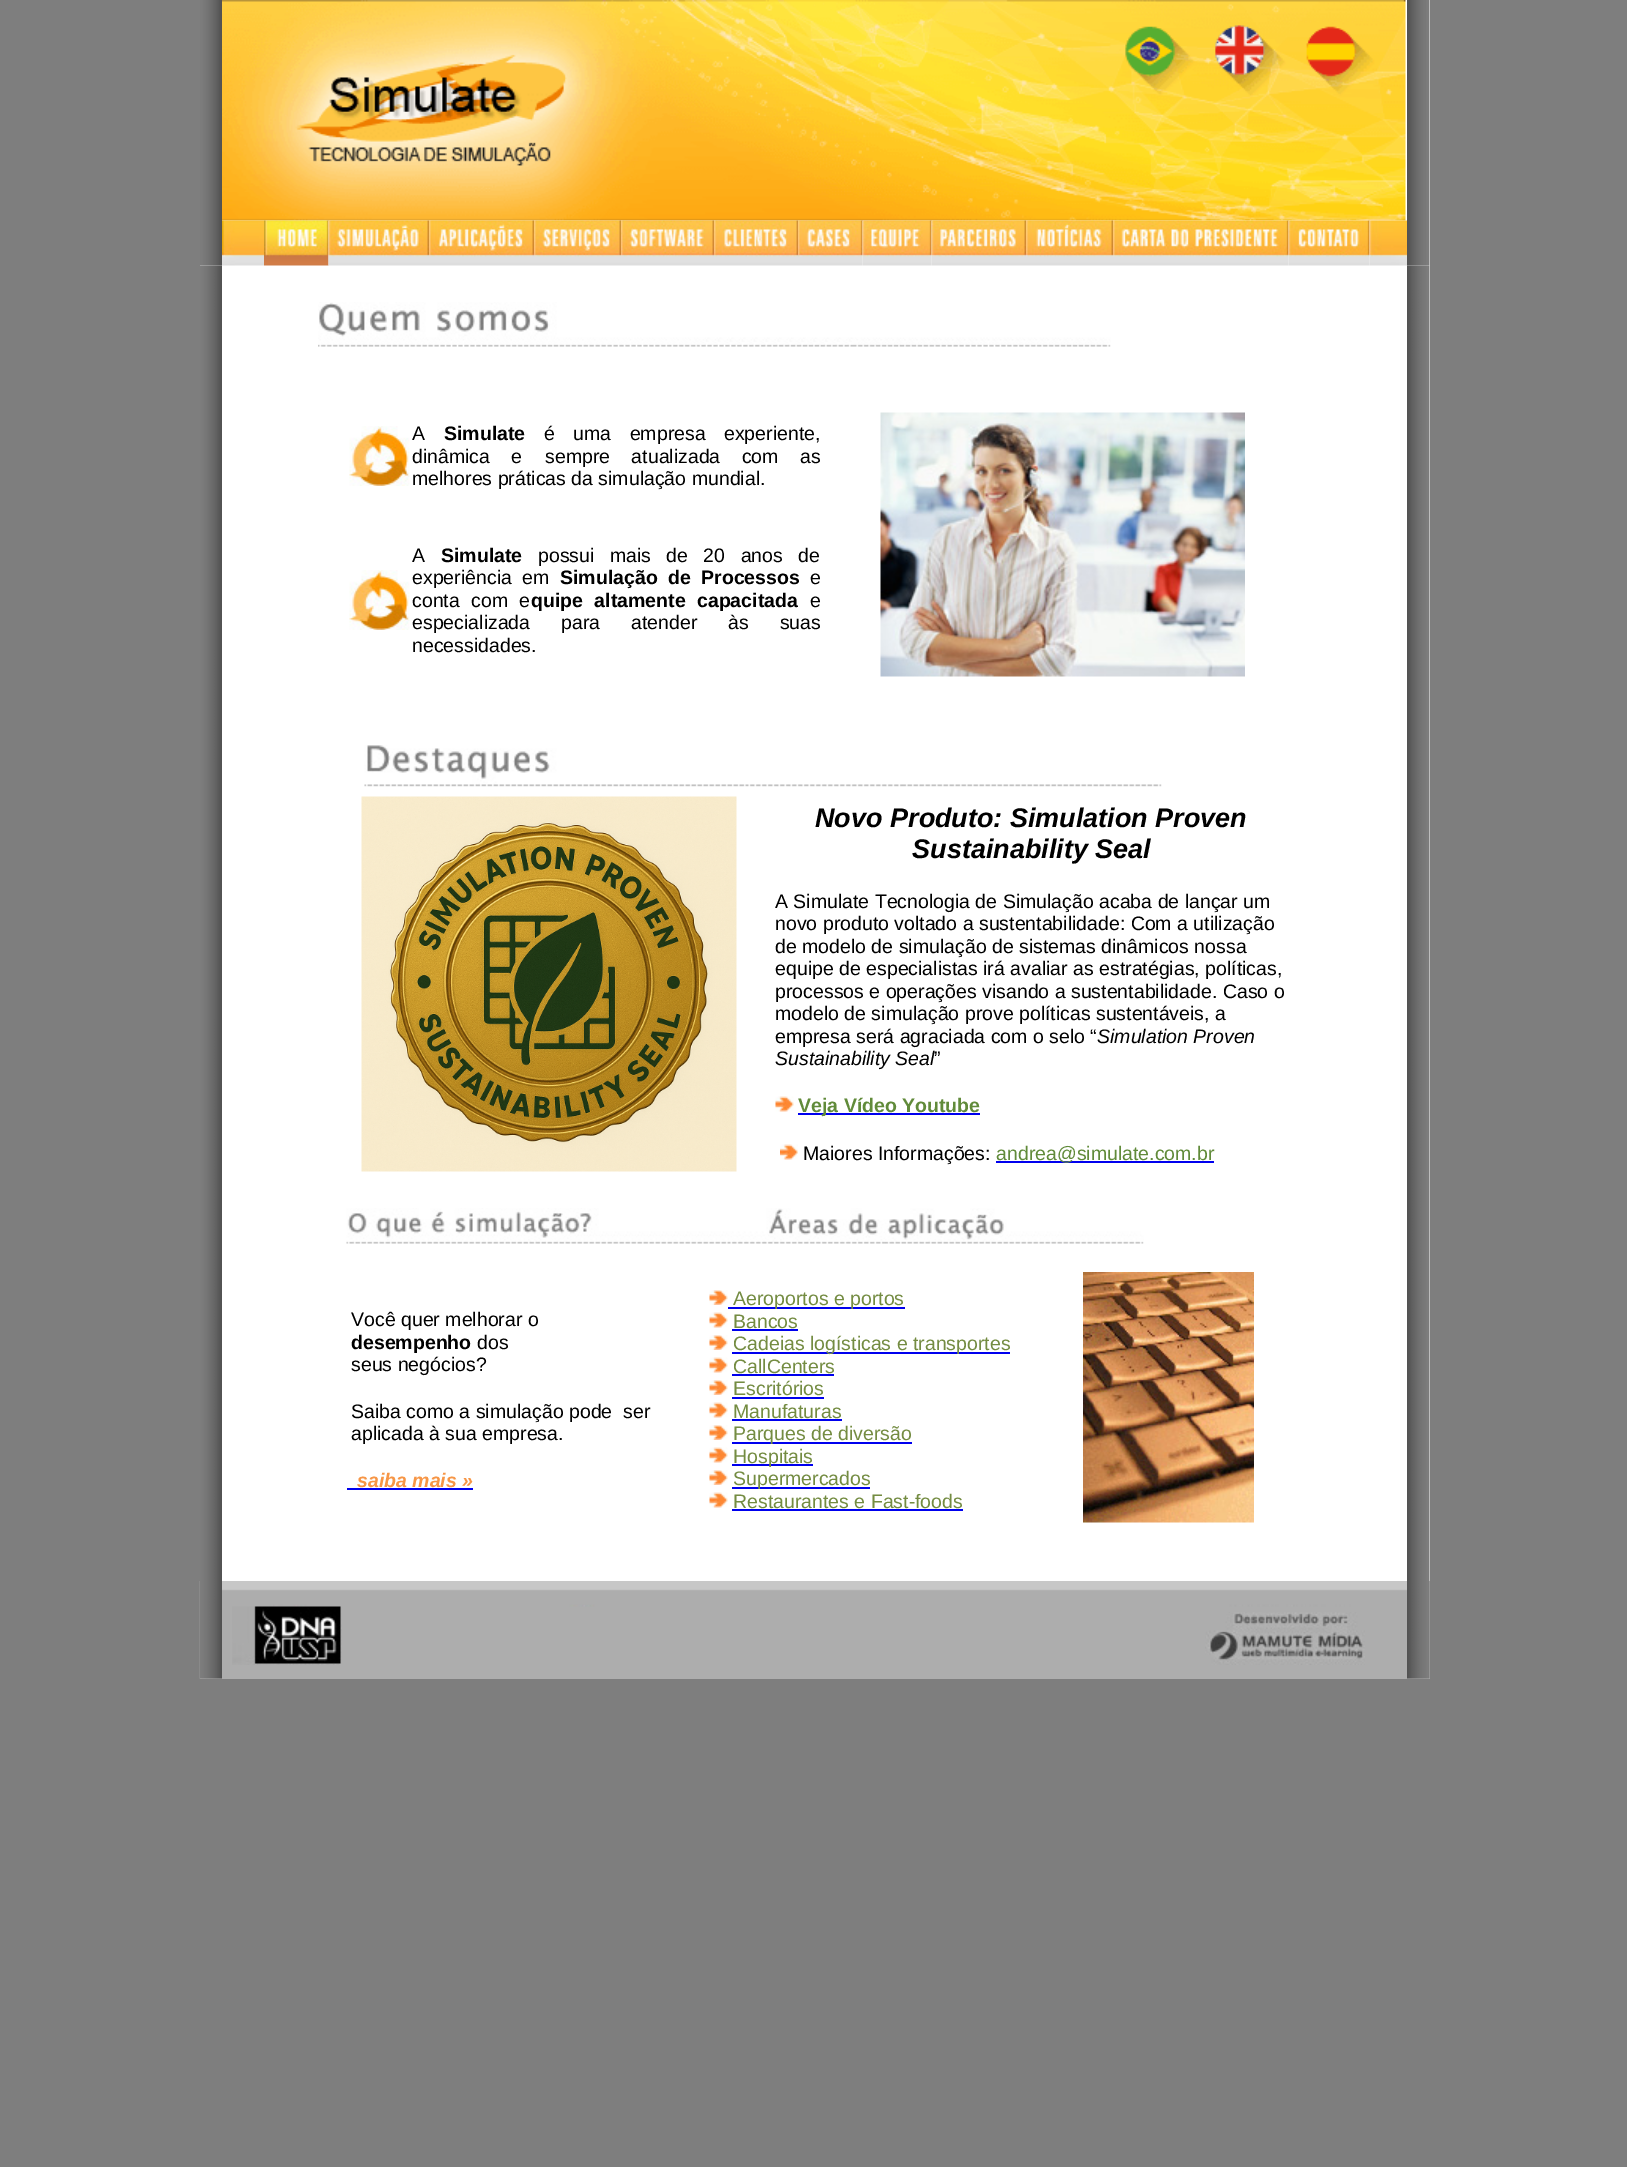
%!PS-Adobe-3.0
%%BoundingBox: 0 0 1627 2167
%%LanguageLevel: 3
%%Pages: 1
%%EndComments
%%BeginProlog
/setink { dup -16 bitshift 255 div exch dup -8 bitshift 255 and 255 div exch 255 and 255 div setrgbcolor } def
/usefont { [ exch dup neg 0 0 3 -1 roll 0 0 ] selectfont } def
/drawimage { 5 dict begin { /h /w /y /x /name } { exch def } forall
  gsave x y translate w h scale
  w h 8 [w 0 0 h 0 0] name (r) file false 3 colorimage grestore end } def
%%EndProlog
%%BeginSetup
<< /PageSize [1627 2167] >> setpagedevice
%%EndSetup
%%Page: 1 1
0 2167 translate 1 -1 scale
4 setmiterlimit
16#7E7E7E setink
0 0 1627 2167 rectfill
16#FFFFFF setink
200 0 1230 266 rectfill
(img18.raw) 200 265 22 1316 drawimage
(img1.raw) 200 0 22 266 drawimage
(img2.raw) 222 0 1184 221 drawimage
222 266 1208 1315 rectfill
(img30.raw) 1407 265 23 1316 drawimage
(img3.raw) 1407 0 23 266 drawimage
(img4.raw) 222 220 42 46 drawimage
(img5.raw) 264 220 65 46 drawimage
(img6.raw) 328 220 101 46 drawimage
(img7.raw) 429 220 105 46 drawimage
(img8.raw) 534 220 87 46 drawimage
(img9.raw) 621 220 93 46 drawimage
(img10.raw) 714 220 84 46 drawimage
(img11.raw) 798 220 65 46 drawimage
(img12.raw) 862 220 70 46 drawimage
(img13.raw) 931 220 95 46 drawimage
(img14.raw) 1026 220 87 46 drawimage
(img15.raw) 1113 220 176 46 drawimage
(img16.raw) 1288 220 82 46 drawimage
(img17.raw) 1369 220 38 46 drawimage
(img19.raw) 318 302 793 45 drawimage
(img20.raw) 349 426 61 60 drawimage
/LiberationSans-Regular 19.5 usefont
16#000000 setink
412 440 moveto (A) show
/LiberationSans-Bold 19.5 usefont
444 440 moveto (Simulate) show
/LiberationSans-Regular 19.5 usefont
544 440 moveto 13 0 32 (é uma empresa experiente,) widthshow
412 463 moveto 16 0 32 (dinâmica e) widthshow
545 463 moveto 16 0 32 (sempre atualizada com as) widthshow
412 485 moveto (melhores práticas da simulação mundial.) show
(img21.raw) 880 412 365 265 drawimage
(img20.raw) 349 570 61 60 drawimage
412 562 moveto (A) show
/LiberationSans-Bold 19.5 usefont
441 562 moveto (Simulate) show
/LiberationSans-Regular 19.5 usefont
538 562 moveto 10 0 32 (possui mais de 20 anos de) widthshow
412 584 moveto 5 0 32 (experiência em) widthshow
/LiberationSans-Bold 19.5 usefont
560 584 moveto 5 0 32 (Simulação de Processos) widthshow
/LiberationSans-Regular 19.5 usefont
810 584 moveto (e) show
412 607 moveto 6 0 32 (conta com e) widthshow
/LiberationSans-Bold 19.5 usefont
531 607 moveto 6 0 32 (quipe altamente capacitada) widthshow
/LiberationSans-Regular 19.5 usefont
810 607 moveto (e) show
412 629 moveto 25.5 0 32 (especializada para atender às suas) widthshow
412 652 moveto (necessidades.) show
(img22.raw) 364 745 798 42 drawimage
(img23.raw) 361 796 376 376 drawimage
/LiberationSans-BoldItalic 27 usefont
815 827 moveto (Novo Produto: Simulation Proven) show
912 858 moveto (Sustainability Seal) show
/LiberationSans-Regular 19.5 usefont
[
    [(A Simulate Tecnologia de Simulação acaba de lançar um) 775 908]
    [(novo produto voltado a sustentabilidade: Com a utilização) 775 930]
    [(de modelo de simulação de sistemas dinâmicos nossa) 775 953]
    [(equipe de especialistas irá avaliar as estratégias, políticas,) 775 975]
    [(processos e operações visando a sustentabilidade. Caso o) 775 998]
    [(modelo de simulação prove políticas sustentáveis, a) 775 1020]
    [(empresa será agraciada com o selo “) 775 1043]
] { aload pop moveto show } forall
/LiberationSans-Italic 19.5 usefont
1097 1043 moveto (Simulation Proven) show
775 1065 moveto (Sustainability Seal) show
/LiberationSans-Regular 19.5 usefont
934 1065 moveto (”) show
(img24.raw) 775 1096 19 16 drawimage
16#0000EE setink
798 1113 182 2 rectfill
/LiberationSans-Bold 19.5 usefont
16#618B3A setink
798 1112 moveto (Veja Vídeo Youtube) show
(img25.raw) 780 1144 18 16 drawimage
/LiberationSans-Regular 19.5 usefont
16#000000 setink
803 1160 moveto (Maiores Informações:) show
16#0000EE setink
996 1161 218 2 rectfill
16#618B3A setink
996 1160 moveto (andrea@simulate.com.br) show
(img26.raw) 346 1208 798 36 drawimage
16#000000 setink
351 1326 moveto (Você quer melhorar o) show
/LiberationSans-Bold 19.5 usefont
351 1349 moveto (desempenho) show
/LiberationSans-Regular 19.5 usefont
[
    [(dos) 477 1349]
    [(seus negócios?) 351 1371]
    [(Saiba como a simulação pode  ser) 351 1418]
    [(aplicada à sua empresa.) 351 1440]
] { aload pop moveto show } forall
/LiberationSans-BoldItalic 19.5 usefont
16#F79646 setink
357 1487 moveto (saiba mais ») show
16#0000EE setink
347 1488 126 2 rectfill
(img27.raw) 709 1290 19 15 drawimage
728 1307 177 2 rectfill
/LiberationSans-Regular 19.5 usefont
16#748C42 setink
733 1305 moveto (Aeroportos e portos) show
(img28.raw) 709 1312 19 16 drawimage
733 1328 moveto (Bancos) show
16#0000EE setink
732 1329 66 2 rectfill
(img27.raw) 709 1335 19 15 drawimage
732 1352 278 2 rectfill
16#748C42 setink
733 1350 moveto (Cadeias logísticas e transportes) show
(img28.raw) 709 1357 19 16 drawimage
733 1373 moveto (CallCenters) show
16#0000EE setink
732 1374 102 2 rectfill
(img27.raw) 709 1380 19 15 drawimage
16#748C42 setink
733 1395 moveto (Escritórios) show
16#0000EE setink
732 1397 92 2 rectfill
(img28.raw) 709 1402 19 16 drawimage
16#748C42 setink
733 1418 moveto (Manufaturas) show
16#0000EE setink
732 1419 110 2 rectfill
(img27.raw) 709 1425 19 15 drawimage
732 1442 180 2 rectfill
16#748C42 setink
733 1440 moveto (Parques de diversão) show
(img28.raw) 709 1447 19 16 drawimage
16#0000EE setink
732 1464 81 2 rectfill
16#748C42 setink
733 1463 moveto (Hospitais) show
(img27.raw) 709 1470 19 15 drawimage
16#0000EE setink
732 1487 138 2 rectfill
16#748C42 setink
733 1485 moveto (Supermercados) show
(img28.raw) 709 1492 19 16 drawimage
733 1508 moveto (Restaurantes e Fast-foods) show
16#0000EE setink
732 1509 231 2 rectfill
(img29.raw) 1083 1272 171 251 drawimage
16#ADADAD setink
200 1581 1230 98 rectfill
(img31.raw) 199 1581 23 98 drawimage
(img32.raw) 222 1581 1185 26 drawimage
(img33.raw) 232 1606 110 59 drawimage
(img34.raw) 1205 1612 160 53 drawimage
(img35.raw) 1407 1581 23 98 drawimage
showpage
%%EOF
